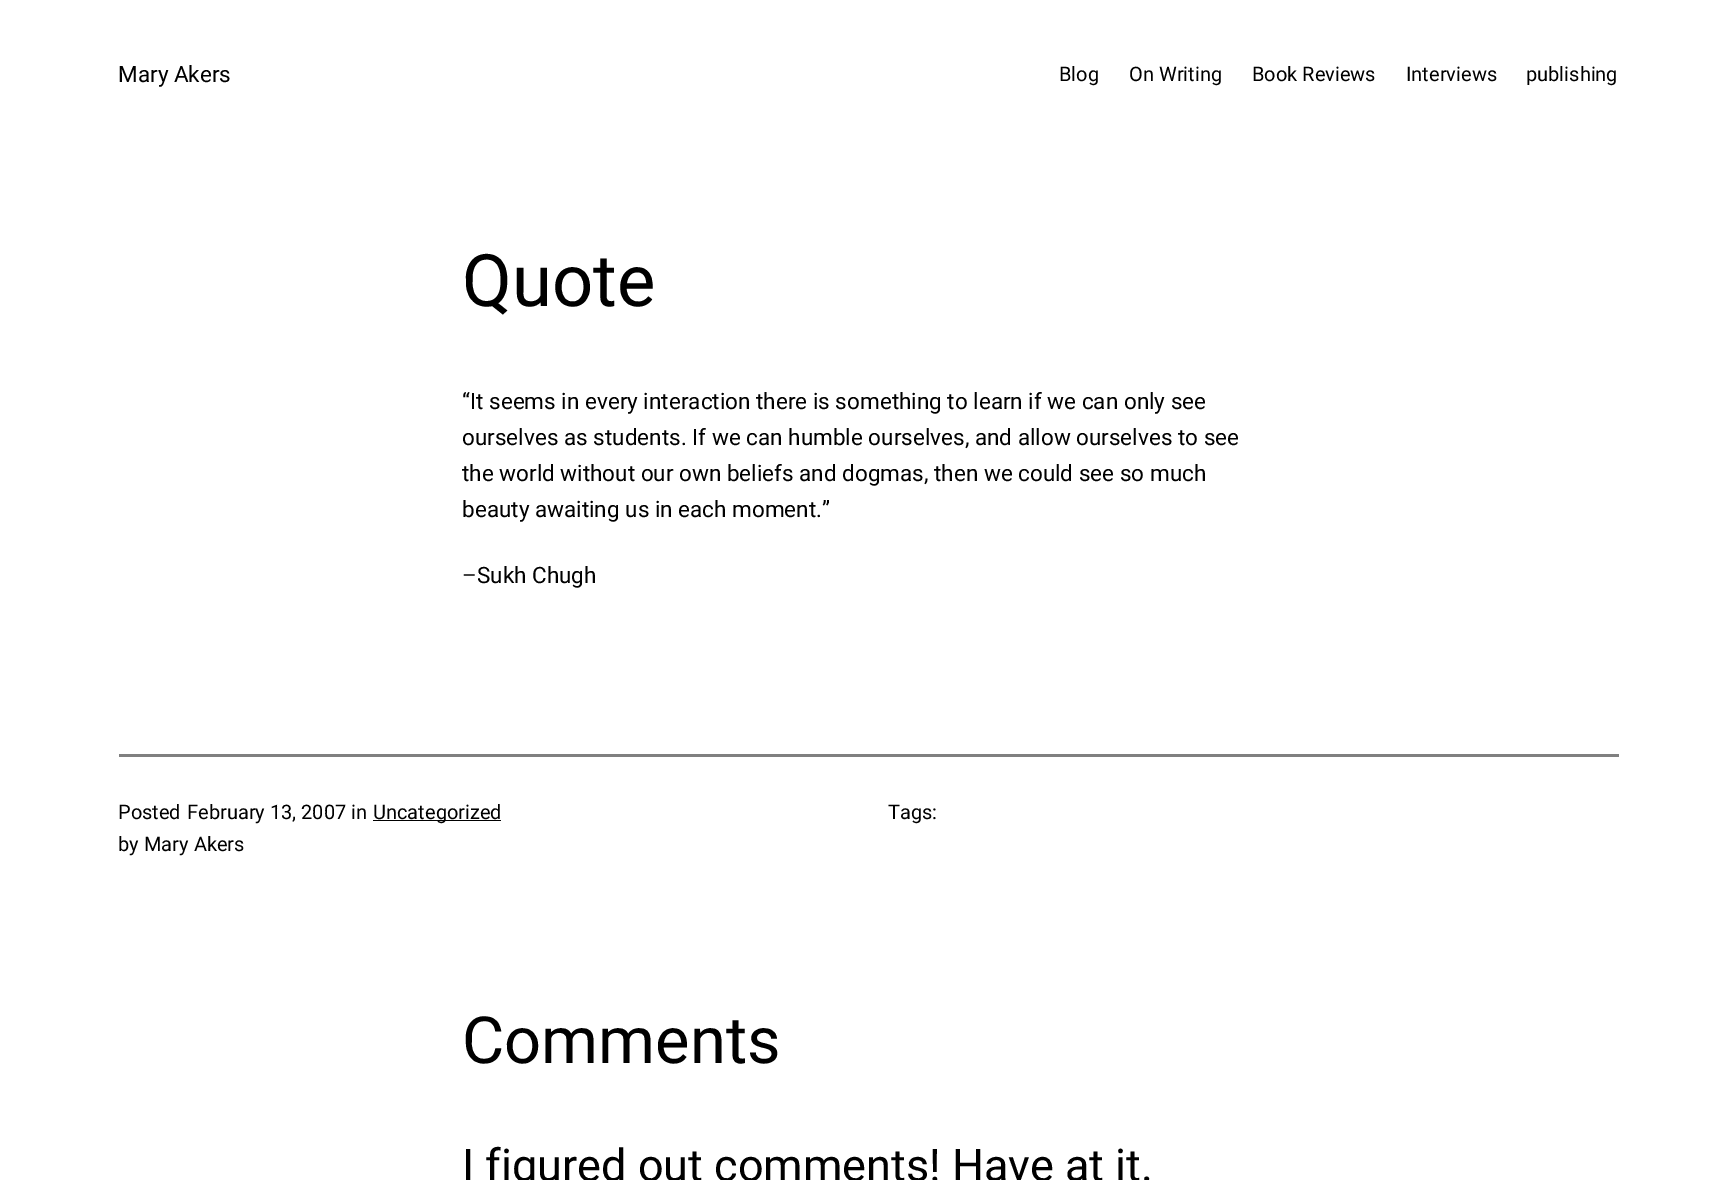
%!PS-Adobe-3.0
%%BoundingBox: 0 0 1736 1180
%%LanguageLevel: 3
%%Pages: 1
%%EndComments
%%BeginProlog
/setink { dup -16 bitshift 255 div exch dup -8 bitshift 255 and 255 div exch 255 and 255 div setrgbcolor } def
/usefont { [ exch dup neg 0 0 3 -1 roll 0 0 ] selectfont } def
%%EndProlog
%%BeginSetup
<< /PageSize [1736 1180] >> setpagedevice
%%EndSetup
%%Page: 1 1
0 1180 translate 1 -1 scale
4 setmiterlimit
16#FFFFFF setink
0 0 1736 1180 rectfill
/Roboto-Regular 22.5 usefont
16#000000 setink
118 82 moveto (Mary Akers) show
/Roboto-Regular 20 usefont
[
    [(Blog) 1059 81]
    [(On Writing) 1129 81]
    [(Book Reviews) 1252 81]
    [(Interviews) 1406 81]
    [(publishing) 1526 81]
] { aload pop moveto show } forall
/Roboto-Regular 72.5 usefont
462 306 moveto (Quote) show
/Roboto-Regular 22.5 usefont
[
    [(“It seems in every interaction there is something to learn if we can only see) 462 409]
    [(ourselves as students. If we can humble ourselves, and allow ourselves to see) 462 445]
    [(the world without our own beliefs and dogmas, then we could see so much) 462 481]
    [(beauty awaiting us in each moment.”) 462 517]
    [(–Sukh Chugh) 462 583]
] { aload pop moveto show } forall
16#808080 setink
119 754 1500 3 rectfill
/Roboto-Regular 20 usefont
16#000000 setink
[
    [(Posted) 118 819]
    [(February 13, 2007) 187 819]
    [(in) 351 819]
] { aload pop moveto show } forall
373 820 128 1 rectfill
[
    [(Uncategorized) 373 819]
    [(by) 118 851]
    [(Mary Akers) 144 851]
    [(Tags:) 888 819]
] { aload pop moveto show } forall
/Roboto-Regular 65 usefont
462 1063 moveto (Comments) show
/Roboto-Regular 45 usefont
462 1181 moveto (I figured out comments! Have at it.) show
showpage
%%EOF
